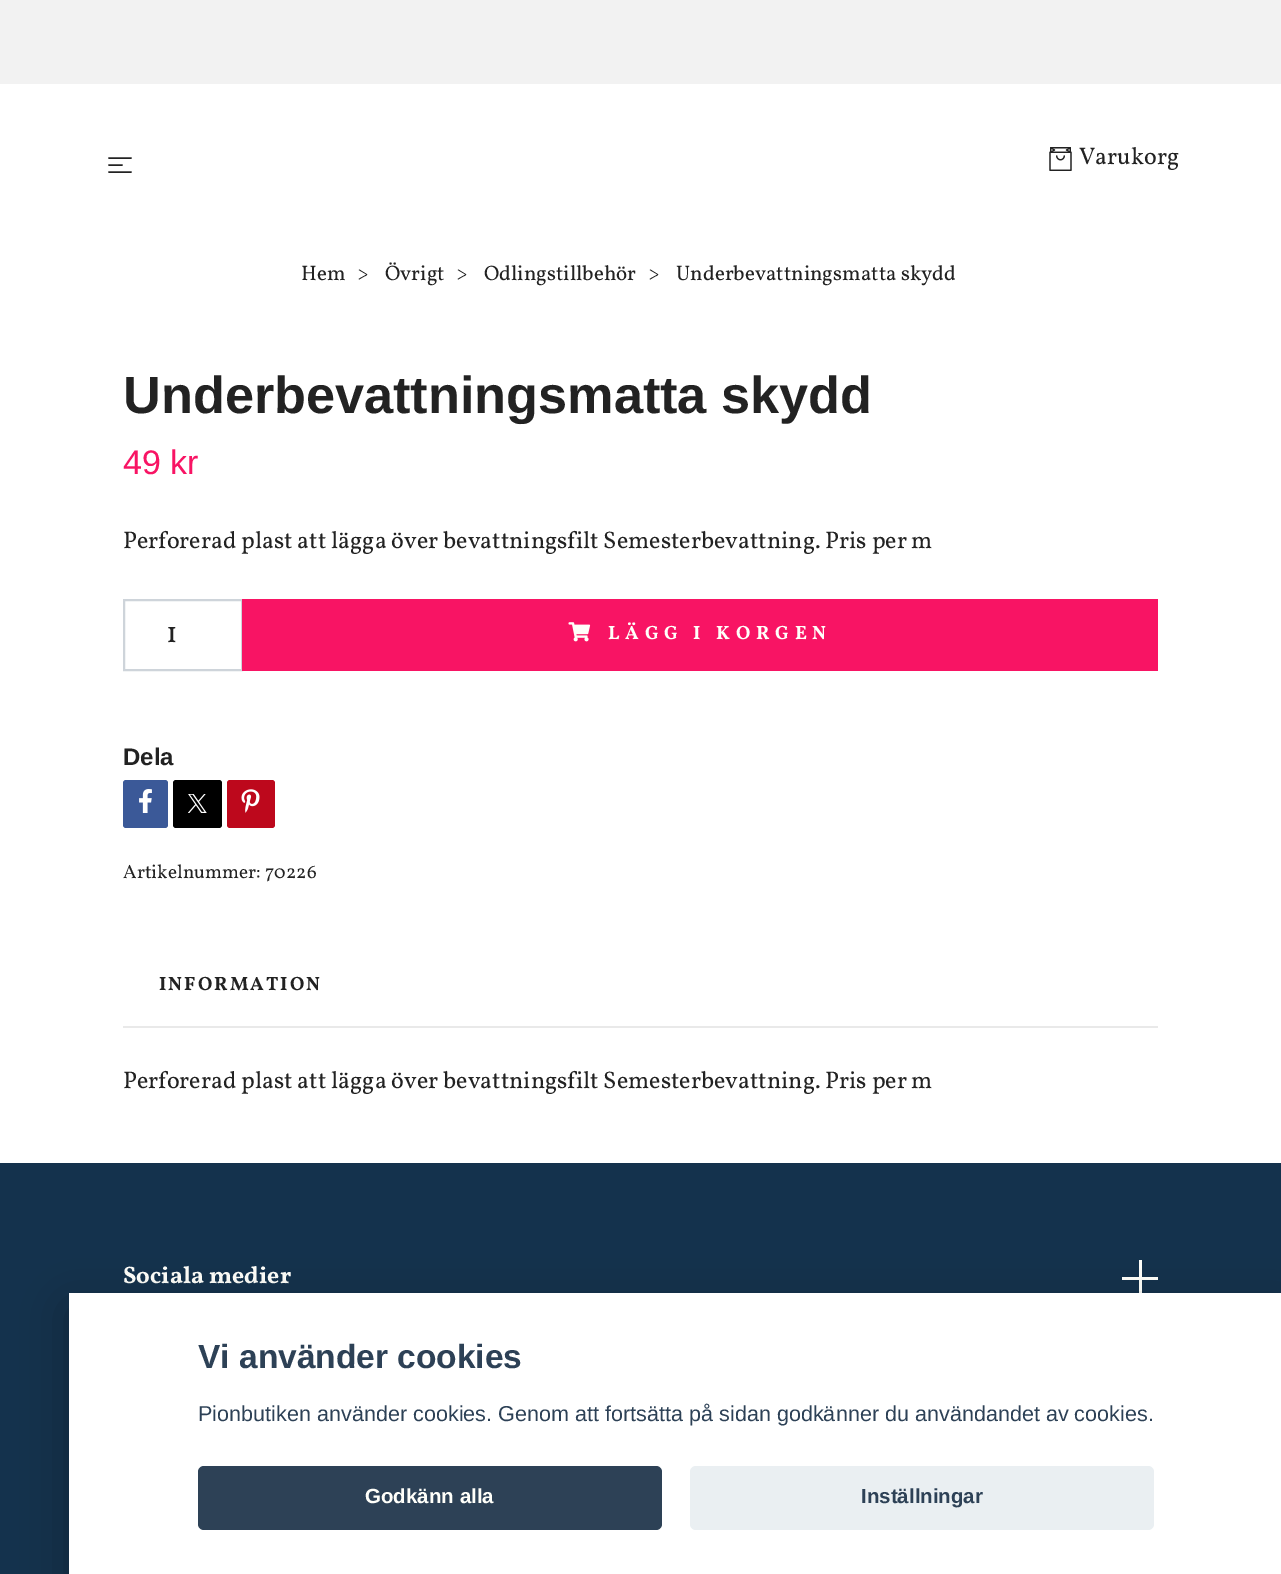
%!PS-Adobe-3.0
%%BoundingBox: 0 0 1281 1574
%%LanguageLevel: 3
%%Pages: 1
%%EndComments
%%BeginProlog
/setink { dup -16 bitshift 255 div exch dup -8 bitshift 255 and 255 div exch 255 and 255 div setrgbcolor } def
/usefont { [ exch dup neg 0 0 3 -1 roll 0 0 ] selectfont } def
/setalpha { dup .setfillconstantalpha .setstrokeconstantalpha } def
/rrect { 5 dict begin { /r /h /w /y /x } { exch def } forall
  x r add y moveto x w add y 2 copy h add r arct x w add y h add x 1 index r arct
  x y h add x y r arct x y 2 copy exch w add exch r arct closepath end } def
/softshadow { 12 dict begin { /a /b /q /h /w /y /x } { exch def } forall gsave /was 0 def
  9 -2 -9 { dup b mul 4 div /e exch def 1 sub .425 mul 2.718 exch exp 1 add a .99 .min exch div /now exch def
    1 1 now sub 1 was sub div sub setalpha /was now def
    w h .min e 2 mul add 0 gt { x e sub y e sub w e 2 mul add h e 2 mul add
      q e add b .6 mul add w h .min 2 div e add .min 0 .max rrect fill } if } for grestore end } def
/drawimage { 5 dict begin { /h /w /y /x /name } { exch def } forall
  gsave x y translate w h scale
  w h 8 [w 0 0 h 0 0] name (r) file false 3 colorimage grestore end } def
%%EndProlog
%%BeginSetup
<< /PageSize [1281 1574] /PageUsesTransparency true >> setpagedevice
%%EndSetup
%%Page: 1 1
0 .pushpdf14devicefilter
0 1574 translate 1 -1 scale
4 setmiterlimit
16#FFFFFF setink
0 0 1281 1574 rectfill
16#F2F2F2 setink
0 0 1281 84 rectfill
16#222222 setink
1.5 setlinewidth
1 setlinecap
1 setlinejoin
109 158 moveto 131 158 lineto 109 165 moveto 122 165 lineto 109 172 moveto 131 172 lineto stroke
(img1.raw) 1049 147 23 24 drawimage
/Vollkorn-Regular 24 usefont
1079 164 moveto (Varukorg) show
/Vollkorn-Regular 21 usefont
[
    [(Hem) 301 280]
    [(>) 357 280]
    [(Övrigt) 385 280]
    [(>) 456 280]
    [(Odlingstillbehör) 484 280]
    [(>) 648 280]
    [(Underbevattningsmatta skydd) 676 280]
] { aload pop moveto show } forall
/LiberationSans-Bold 52.25 usefont
123 413 moveto (Underbevattningsmatta skydd) show
/LiberationSans-Regular 34 usefont
16#F81464 setink
123 474 moveto (49 kr) show
/Vollkorn-Regular 24 usefont
16#222222 setink
123 548 moveto (Perforerad plast att lägga över bevattningsfilt Semesterbevattning. Pris per m) show
16#CED4DA setink
2 setlinewidth
0 setlinecap
0 setlinejoin
124 600 118 70 rectstroke
/Vollkorn-Regular 30 usefont
16#222222 setink
166 642 moveto (1) show
16#F81464 setink
242 599 916 72 rectfill
(img2.raw) 568 622 23 20 drawimage
/Vollkorn-Bold 19.25 usefont
16#FFFFFA setink
608 639 moveto 5.75 0 (LÄGG I KORGEN) ashow
/LiberationSans-Bold 24 usefont
16#222222 setink
123 765 moveto (Dela) show
16#3B5998 setink
123 780 45 48 3 rrect fill
(img3.raw) 139 789 13 24 drawimage
16#000000 setink
173 780 49 48 3 rrect fill
16#BD081C setink
227 780 48 48 3 rrect fill
(img4.raw) 241 789 19 24 drawimage
(img5.raw) 188 794 19 19 drawimage
/Vollkorn-Regular 19.25 usefont
16#222222 setink
123 878 moveto (Artikelnummer:) show
265 878 moveto (70226) show
16#E9E9E9 setink
123 1026 1035 2 rectfill
/Vollkorn-Bold 19.25 usefont
16#222222 setink
159 990 moveto 2 0 (INFORMATION) ashow
/Vollkorn-Regular 24 usefont
123 1088 moveto (Perforerad plast att lägga över bevattningsfilt Semesterbevattning. Pris per m) show
16#14324D setink
0 1163 1281 411 rectfill
/Vollkorn-Bold 24 usefont
16#FFFFFA setink
123 1283 moveto (Sociala medier) show
1139 1260 3 36 rectfill
1122 1277 36 3 rectfill
16#020203 setink
69 1308 1212 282 0 22.5 0.28 softshadow
16#FFFFFF setink
69 1293 1212 281 rectfill
/LiberationSans-Bold 33.5 usefont
16#2D4156 setink
198 1368 moveto (Vi använder cookies) show
/LiberationSans-Regular 21.6 usefont
198 1421 moveto (Pionbutiken använder cookies. Genom att fortsätta på sidan godkänner du användandet av cookies.) show
198 1466 464 64 6 rrect fill
/LiberationSans-Bold 20.5 usefont
16#FFFFFA setink
365 1503 moveto (Godkänn alla) show
16#EAEFF2 setink
690 1466 464 64 6 rrect fill
16#2D4156 setink
861 1503 moveto (Inställningar) show
.poppdf14devicefilter showpage
%%EOF
